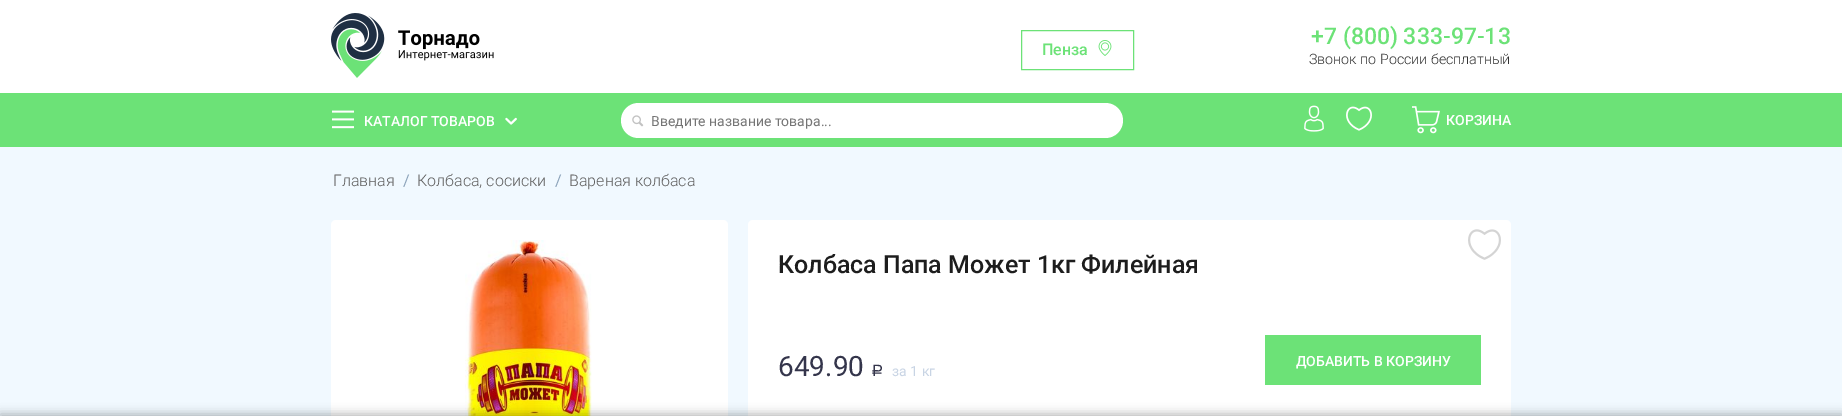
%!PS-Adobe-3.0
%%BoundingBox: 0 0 1842 416
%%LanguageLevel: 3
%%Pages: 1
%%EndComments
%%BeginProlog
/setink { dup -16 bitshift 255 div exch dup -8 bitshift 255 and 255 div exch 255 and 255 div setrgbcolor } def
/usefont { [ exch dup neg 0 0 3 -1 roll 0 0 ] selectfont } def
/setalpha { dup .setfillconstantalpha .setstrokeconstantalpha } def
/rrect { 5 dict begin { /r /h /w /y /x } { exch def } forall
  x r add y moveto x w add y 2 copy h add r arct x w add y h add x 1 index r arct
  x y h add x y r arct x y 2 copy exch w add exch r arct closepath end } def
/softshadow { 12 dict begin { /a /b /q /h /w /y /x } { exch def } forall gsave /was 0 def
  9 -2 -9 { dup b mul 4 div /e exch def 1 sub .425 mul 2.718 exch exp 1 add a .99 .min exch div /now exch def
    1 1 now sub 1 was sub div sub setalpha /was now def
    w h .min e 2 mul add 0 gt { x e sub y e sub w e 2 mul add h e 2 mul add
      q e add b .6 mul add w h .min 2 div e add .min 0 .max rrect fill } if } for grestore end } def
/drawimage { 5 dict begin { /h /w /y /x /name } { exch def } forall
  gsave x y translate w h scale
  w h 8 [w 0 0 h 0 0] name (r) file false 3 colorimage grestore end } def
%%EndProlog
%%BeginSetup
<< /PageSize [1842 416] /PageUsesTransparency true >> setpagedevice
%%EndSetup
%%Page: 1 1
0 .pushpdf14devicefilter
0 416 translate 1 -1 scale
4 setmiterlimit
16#FFFFFF setink
0 0 1842 416 rectfill
(img1.raw) 331 13 163 65 drawimage
16#6CE277 setink
1021.5 30.5 112 39 rectstroke
/Roboto-Medium 16 usefont
1042 55 moveto (Пенза) show
(img2.raw) 1098 40 14 16 drawimage
/Roboto-Medium 23 usefont
1311 44 moveto (+7 \(800\) 333-97-13) show
/Roboto-Light 14.25 usefont
16#313131 setink
1309 64 moveto (Звонок по России бесплатный) show
16#6CE277 setink
0 93 1842 54 rectfill
(img3.raw) 332 110 22 19 drawimage
/Roboto-Medium 14 usefont
16#FFFFFF setink
364 126 moveto (КАТАЛОГ ТОВАРОВ) show
(img4.raw) 505 117 12 8 drawimage
621 103 502 35 17.5 rrect fill
(img5.raw) 632 115 12 12 drawimage
/Roboto-Regular 14 usefont
16#757575 setink
651 126 moveto (Введите название товара...) show
(img6.raw) 1304 105 20 27 drawimage
(img7.raw) 1346 106 26 25 drawimage
(img8.raw) 1412 106 28 28 drawimage
/Roboto-Medium 14 usefont
16#FFFFFF setink
1446 125 moveto (КОРЗИНА) show
16#F1F9FF setink
0 147 1842 269 rectfill
/Roboto-Light 16 usefont
16#606060 setink
333 186 moveto (Главная) show
/Roboto-Regular 16 usefont
16#8CA3BA setink
403 186 moveto (/) show
/Roboto-Light 16 usefont
16#606060 setink
417 186 moveto (Колбаса, сосиски) show
/Roboto-Regular 16 usefont
16#8CA3BA setink
555 186 moveto (/) show
/Roboto-Light 16 usefont
16#606060 setink
569 186 moveto (Вареная колбаса) show
16#FFFFFF setink
331 220 397 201 5 rrect fill
(img9.raw) 465 240 127 176 drawimage
748 220 763 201 5 rrect fill
/Roboto-Medium 25 usefont
16#1D1D1D setink
778 273 moveto (Колбаса Папа Может 1кг Филейная) show
/Roboto-Regular 28 usefont
16#34354B setink
778 376 moveto (649.90) show
/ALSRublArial-Regular 16 usefont
871 376 moveto (Р) show
/Roboto-Regular 14 usefont
16#C8D4E4 setink
892 376 moveto (за 1 кг) show
(img10.raw) 1468 229 33 31 drawimage
16#6CE277 setink
1265 335 216 50 rectfill
/Roboto-Medium 14 usefont
16#FFFFFF setink
1296 366 moveto (ДОБАВИТЬ В КОРЗИНУ) show
16#000000 setink
0 414 1842 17 0 5 0.3 softshadow
.poppdf14devicefilter showpage
%%EOF
